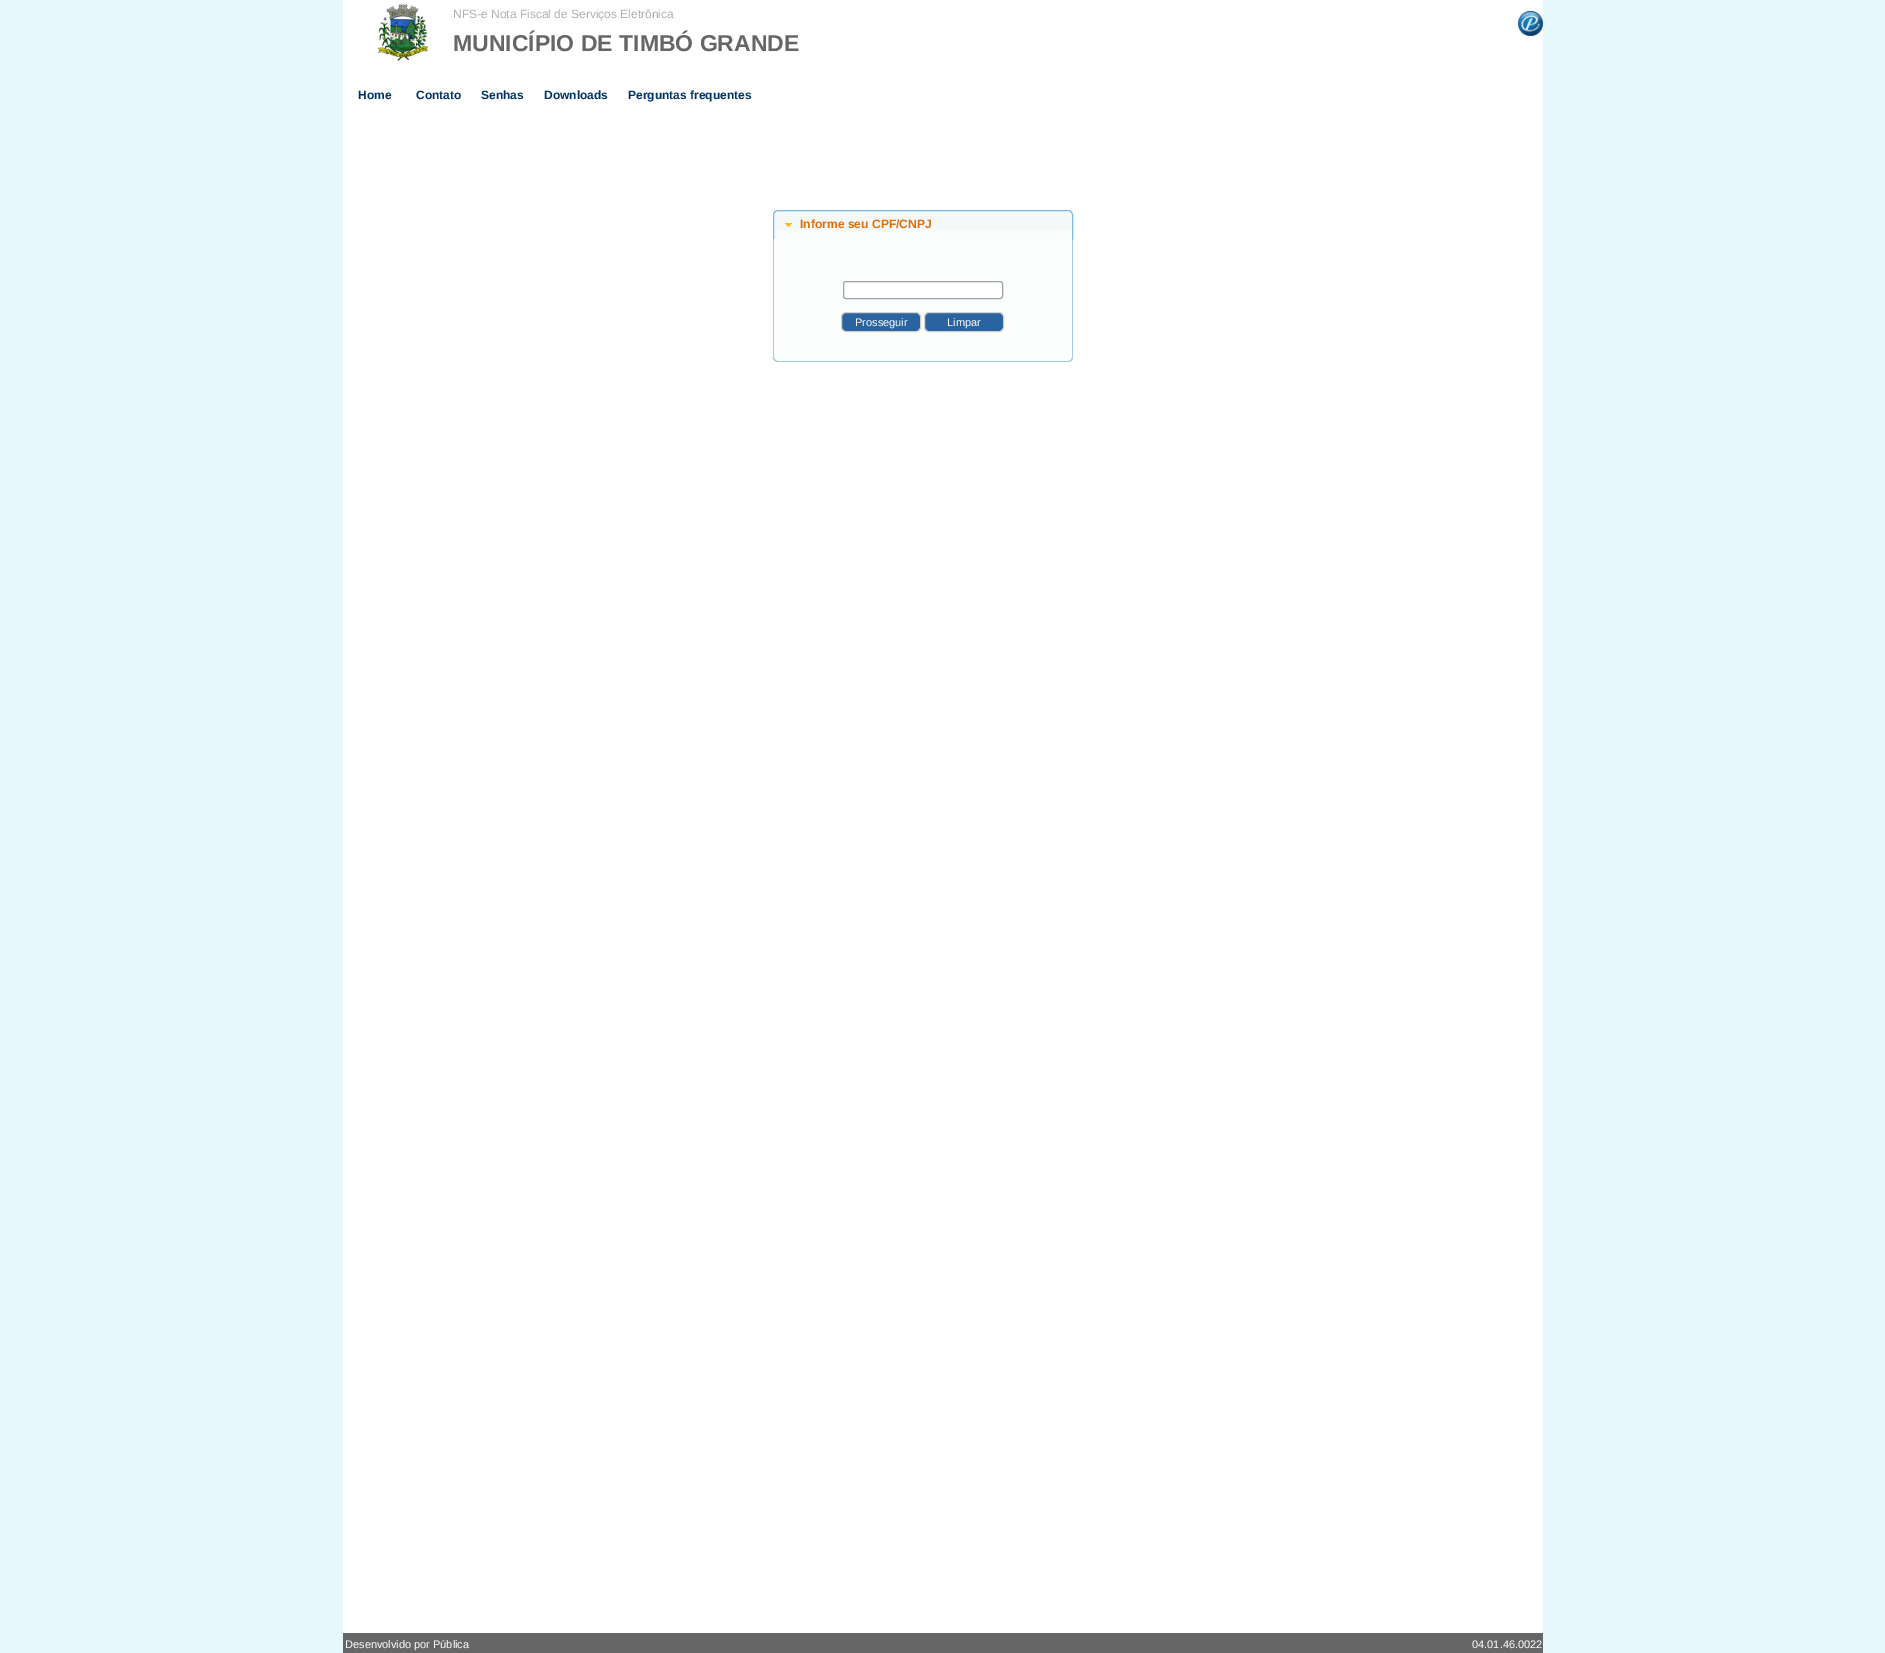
%!PS-Adobe-3.0
%%BoundingBox: 0 0 1885 1653
%%LanguageLevel: 3
%%Pages: 1
%%EndComments
%%BeginProlog
/setink { dup -16 bitshift 255 div exch dup -8 bitshift 255 and 255 div exch 255 and 255 div setrgbcolor } def
/usefont { [ exch dup neg 0 0 3 -1 roll 0 0 ] selectfont } def
/rrect { 5 dict begin { /r /h /w /y /x } { exch def } forall
  x r add y moveto x w add y 2 copy h add r arct x w add y h add x 1 index r arct
  x y h add x y r arct x y 2 copy exch w add exch r arct closepath end } def
/drawimage { 5 dict begin { /h /w /y /x /name } { exch def } forall
  gsave x y translate w h scale
  w h 8 [w 0 0 h 0 0] name (r) file false 3 colorimage grestore end } def
%%EndProlog
%%BeginSetup
<< /PageSize [1885 1653] >> setpagedevice
%%EndSetup
%%Page: 1 1
0 1653 translate 1 -1 scale
4 setmiterlimit
16#E7F7FE setink
0 0 1885 1653 rectfill
16#FFFFFF setink
343 0 1200 1633 rectfill
(img1.raw) 378 4 50 57 drawimage
/LiberationSans-Regular 12 usefont
16#B0B0B0 setink
453 18 moveto (NFS-e Nota Fiscal de Serviços Eletrônica) show
/LiberationSans-Bold 23 usefont
16#666666 setink
453 51 moveto (MUNICÍPIO DE TIMBÓ GRANDE) show
(img2.raw) 1518 11 25 25 drawimage
/LiberationSans-Bold 12 usefont
16#003366 setink
[
    [(Home) 358 99]
    [(Contato) 416 99]
    [(Senhas) 481 99]
    [(Downloads) 544 99]
    [(Perguntas frequentes) 628 99]
] { aload pop moveto show } forall
16#F5F8F9 setink
778 210 moveto 1068 210 lineto 1071 210 1073 212 1073 215 curveto 1073 240 lineto 773 240 lineto 773 215 lineto 773 212 775 210 778 210 curveto closepath fill
16#FAFCFC setink
774 230 298 9 rectfill
16#79B7E7 setink
778 210.5 moveto 1068 210.5 lineto 1070.5 210.5 1072.5 212.5 1072.5 215 curveto 1072.5 239.5 lineto 773.5 239.5 lineto 773.5 215 lineto 773.5 212.5 775.5 210.5 778 210.5 curveto closepath stroke
(img3.raw) 785 223 7 4 drawimage
/LiberationSans-Bold 12.1 usefont
16#E17009 setink
800 228 moveto (Informe seu CPF/CNPJ) show
16#FCFDFD setink
773 239 moveto 1073 239 lineto 1073 357 lineto 1073 360 1071 362 1068 362 curveto 778 362 lineto 775 362 773 360 773 357 curveto closepath fill
16#A6C9E2 setink
773 239 moveto 1073 239 lineto 1073 357 lineto 1073 360 1071 362 1068 362 curveto 778 362 lineto 775 362 773 360 773 357 curveto closepath 774 239 moveto 1072 239 lineto 1072 357 lineto 1072 359 1070 361 1068 361 curveto 778 361 lineto 776 361 774 359 774 357 curveto closepath eofill
16#FFFFFF setink
843.5 281.5 159 17 2.5 rrect gsave fill grestore
16#9CA1A4 setink
stroke
16#2964A1 setink
841.5 312.5 79 19 4.5 rrect gsave fill grestore
16#D1D1D1 setink
stroke
/LiberationSans-Regular 11 usefont
16#FFFFFF setink
855 326 moveto (Prosseguir) show
16#2964A1 setink
924.5 312.5 79 19 4.5 rrect gsave fill grestore
16#D1D1D1 setink
stroke
16#FFFFFF setink
947 326 moveto (Limpar) show
16#666666 setink
343 1633 1200 20 rectfill
16#FFFFFF setink
345 1648 moveto (Desenvolvido por Pública) show
1472 1648 moveto (04.01.46.0022) show
showpage
%%EOF
